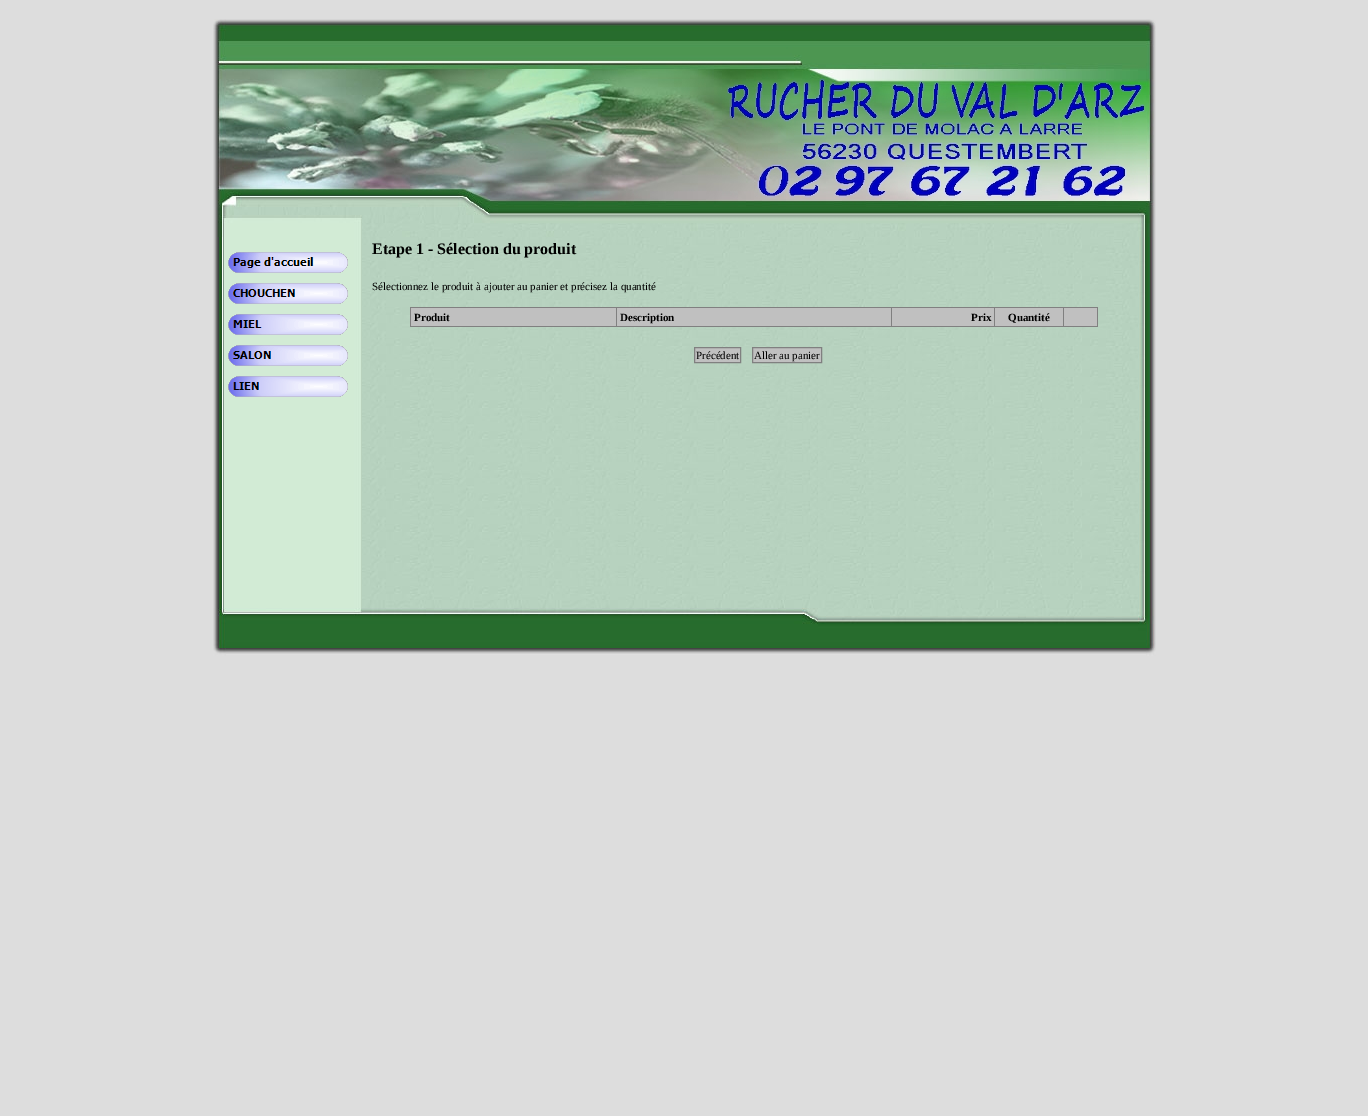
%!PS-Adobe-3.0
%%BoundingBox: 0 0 1368 1116
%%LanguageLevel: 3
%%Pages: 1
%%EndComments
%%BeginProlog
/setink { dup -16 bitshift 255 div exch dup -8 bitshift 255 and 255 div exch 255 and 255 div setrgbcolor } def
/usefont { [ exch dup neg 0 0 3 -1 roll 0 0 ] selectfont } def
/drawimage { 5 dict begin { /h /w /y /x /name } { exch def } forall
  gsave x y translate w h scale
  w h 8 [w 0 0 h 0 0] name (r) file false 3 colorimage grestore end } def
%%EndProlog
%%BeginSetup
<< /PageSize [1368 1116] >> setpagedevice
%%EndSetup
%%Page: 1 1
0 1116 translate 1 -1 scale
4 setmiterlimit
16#DDDDDD setink
0 0 1368 1116 rectfill
(img1.raw) 213 19 943 218 drawimage
(img2.raw) 213 237 943 363 drawimage
(img3.raw) 228 252 120 21 drawimage
(img4.raw) 228 283 120 21 drawimage
(img5.raw) 228 314 120 21 drawimage
(img6.raw) 228 345 120 21 drawimage
(img7.raw) 228 376 120 21 drawimage
/LiberationSerif-Bold 16 usefont
16#000000 setink
372 254 moveto (Etape 1 - Sélection du produit) show
/LiberationSerif-Regular 11 usefont
372 290 moveto (Sélectionnez le produit à ajouter au panier et précisez la quantité) show
[
    [411 308 205 18 16#C0C0C0]
    [1063 307 35 1 16#808080]
    [1097 307 1 20 16#808080]
    [1063 326 35 1 16#808080]
    [1063 307 1 20 16#808080]
    [994 307 70 1 16#808080]
    [994 326 70 1 16#808080]
    [994 307 1 20 16#808080]
    [891 307 104 1 16#808080]
    [891 326 104 1 16#808080]
    [891 307 1 20 16#808080]
    [616 307 276 1 16#808080]
    [616 326 276 1 16#808080]
    [616 307 1 20 16#808080]
    [410 307 207 1 16#808080]
    [410 326 207 1 16#808080]
    [410 307 1 20 16#808080]
] { aload pop setink rectfill } forall
/LiberationSerif-Bold 11 usefont
16#000000 setink
414 321 moveto (Produit) show
16#C0C0C0 setink
617 308 274 18 rectfill
16#000000 setink
620 321 moveto (Description) show
16#C0C0C0 setink
892 308 102 18 rectfill
16#000000 setink
971 321 moveto (Prix) show
16#C0C0C0 setink
995 308 68 18 rectfill
16#000000 setink
1008 321 moveto (Quantité) show
16#C0C0C0 setink
1064 308 33 18 rectfill
694.5 347.5 moveto 740.5 347.5 lineto 740.5 362.5 lineto 694.5 362.5 lineto closepath gsave fill grestore
16#808080 setink
stroke
/LiberationSerif-Regular 11 usefont
16#000000 setink
696 359 moveto (Précédent) show
16#C0C0C0 setink
752.5 347.5 moveto 821.5 347.5 lineto 821.5 362.5 lineto 752.5 362.5 lineto closepath gsave fill grestore
16#808080 setink
stroke
16#000000 setink
754 359 moveto (Aller au panier) show
(img8.raw) 213 600 943 59 drawimage
showpage
%%EOF
